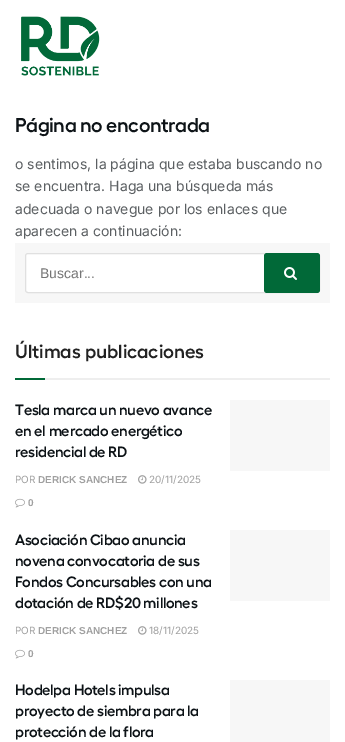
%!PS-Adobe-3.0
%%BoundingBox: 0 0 345 742
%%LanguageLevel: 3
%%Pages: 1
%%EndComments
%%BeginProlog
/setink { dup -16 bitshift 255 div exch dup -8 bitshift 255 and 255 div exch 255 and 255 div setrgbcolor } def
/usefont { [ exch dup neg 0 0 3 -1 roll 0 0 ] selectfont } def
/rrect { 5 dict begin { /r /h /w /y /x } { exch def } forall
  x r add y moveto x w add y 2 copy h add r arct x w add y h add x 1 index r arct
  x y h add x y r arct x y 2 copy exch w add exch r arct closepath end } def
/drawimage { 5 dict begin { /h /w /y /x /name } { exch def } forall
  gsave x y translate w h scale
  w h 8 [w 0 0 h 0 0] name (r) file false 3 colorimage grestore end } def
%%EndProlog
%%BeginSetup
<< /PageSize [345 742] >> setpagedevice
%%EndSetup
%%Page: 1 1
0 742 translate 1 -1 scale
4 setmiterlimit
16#FFFFFF setink
0 0 345 742 rectfill
(img1.raw) 21 16 79 60 drawimage
/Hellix-SemiBold 20 usefont
16#0D1317 setink
15 132 moveto -0.4 0 (Página no encontrada) ashow
/Inter-Regular 14 usefont
16#5B5F62 setink
[
    [(o sentimos, la página que estaba buscando no) 15 169]
    [(se encuentra. Haga una búsqueda más) 15 191]
    [(adecuada o navegue por los enlaces que) 15 214]
    [(aparecen a continuación:) 15 236]
] { aload pop moveto show } forall
16#F7F7F7 setink
15 243 315 60 rectfill
16#FFFFFF setink
25.5 253.5 294 39 2.5 rrect gsave fill grestore
16#E0E0E0 setink
stroke
/LiberationSans-Regular 14 usefont
16#757575 setink
40 278 moveto (Buscar...) show
16#016938 setink
264 253 56 40 3 rrect fill
(img2.raw) 284 267 13 13 drawimage
16#EEEEEE setink
45 378 285 2 rectfill
/Hellix-SemiBold 19 usefont
16#222222 setink
15 358 moveto (Últimas publicaciones) show
16#016938 setink
15 378 30 2 rectfill
/Hellix-SemiBold 15 usefont
16#0D1317 setink
15 415 moveto -0.3 0 (Tesla marca un nuevo avance) ashow
15 436 moveto -0.3 0 (en el mercado energético) ashow
15 457 moveto -0.3 0 (residencial de RD) ashow
/Inter-Regular 10 usefont
16#A0A0A0 setink
15 483 moveto (POR) show
/LiberationSans-Bold 10 usefont
38 483 moveto (DERICK SANCHEZ) show
(img3.raw) 138 475 9 9 drawimage
/Inter-Regular 10 usefont
149 483 moveto (20/11/2025) show
(img4.raw) 15 498 10 10 drawimage
/LiberationSans-Bold 10 usefont
28 506 moveto (0) show
16#F7F7F7 setink
230 400 100 71 rectfill
/Hellix-SemiBold 15 usefont
16#0D1317 setink
15 545 moveto -0.3 0 (Asociación Cibao anuncia) ashow
15 566 moveto -0.3 0 (novena convocatoria de sus) ashow
15 587 moveto -0.3 0 (Fondos Concursables con una) ashow
15 608 moveto -0.3 0 (dotación de RD$20 millones) ashow
/Inter-Regular 10 usefont
16#A0A0A0 setink
15 634 moveto (POR) show
/LiberationSans-Bold 10 usefont
38 634 moveto (DERICK SANCHEZ) show
(img3.raw) 138 626 9 9 drawimage
/Inter-Regular 10 usefont
149 634 moveto (18/11/2025) show
(img4.raw) 15 649 10 10 drawimage
/LiberationSans-Bold 10 usefont
28 657 moveto (0) show
16#F7F7F7 setink
230 530 100 71 rectfill
/Hellix-SemiBold 15 usefont
16#0D1317 setink
15 695 moveto -0.3 0 (Hodelpa Hotels impulsa) ashow
15 716 moveto -0.3 0 (proyecto de siembra para la) ashow
15 737 moveto -0.3 0 (protección de la flora) ashow
16#F7F7F7 setink
230 680 100 62 rectfill
showpage
%%EOF
